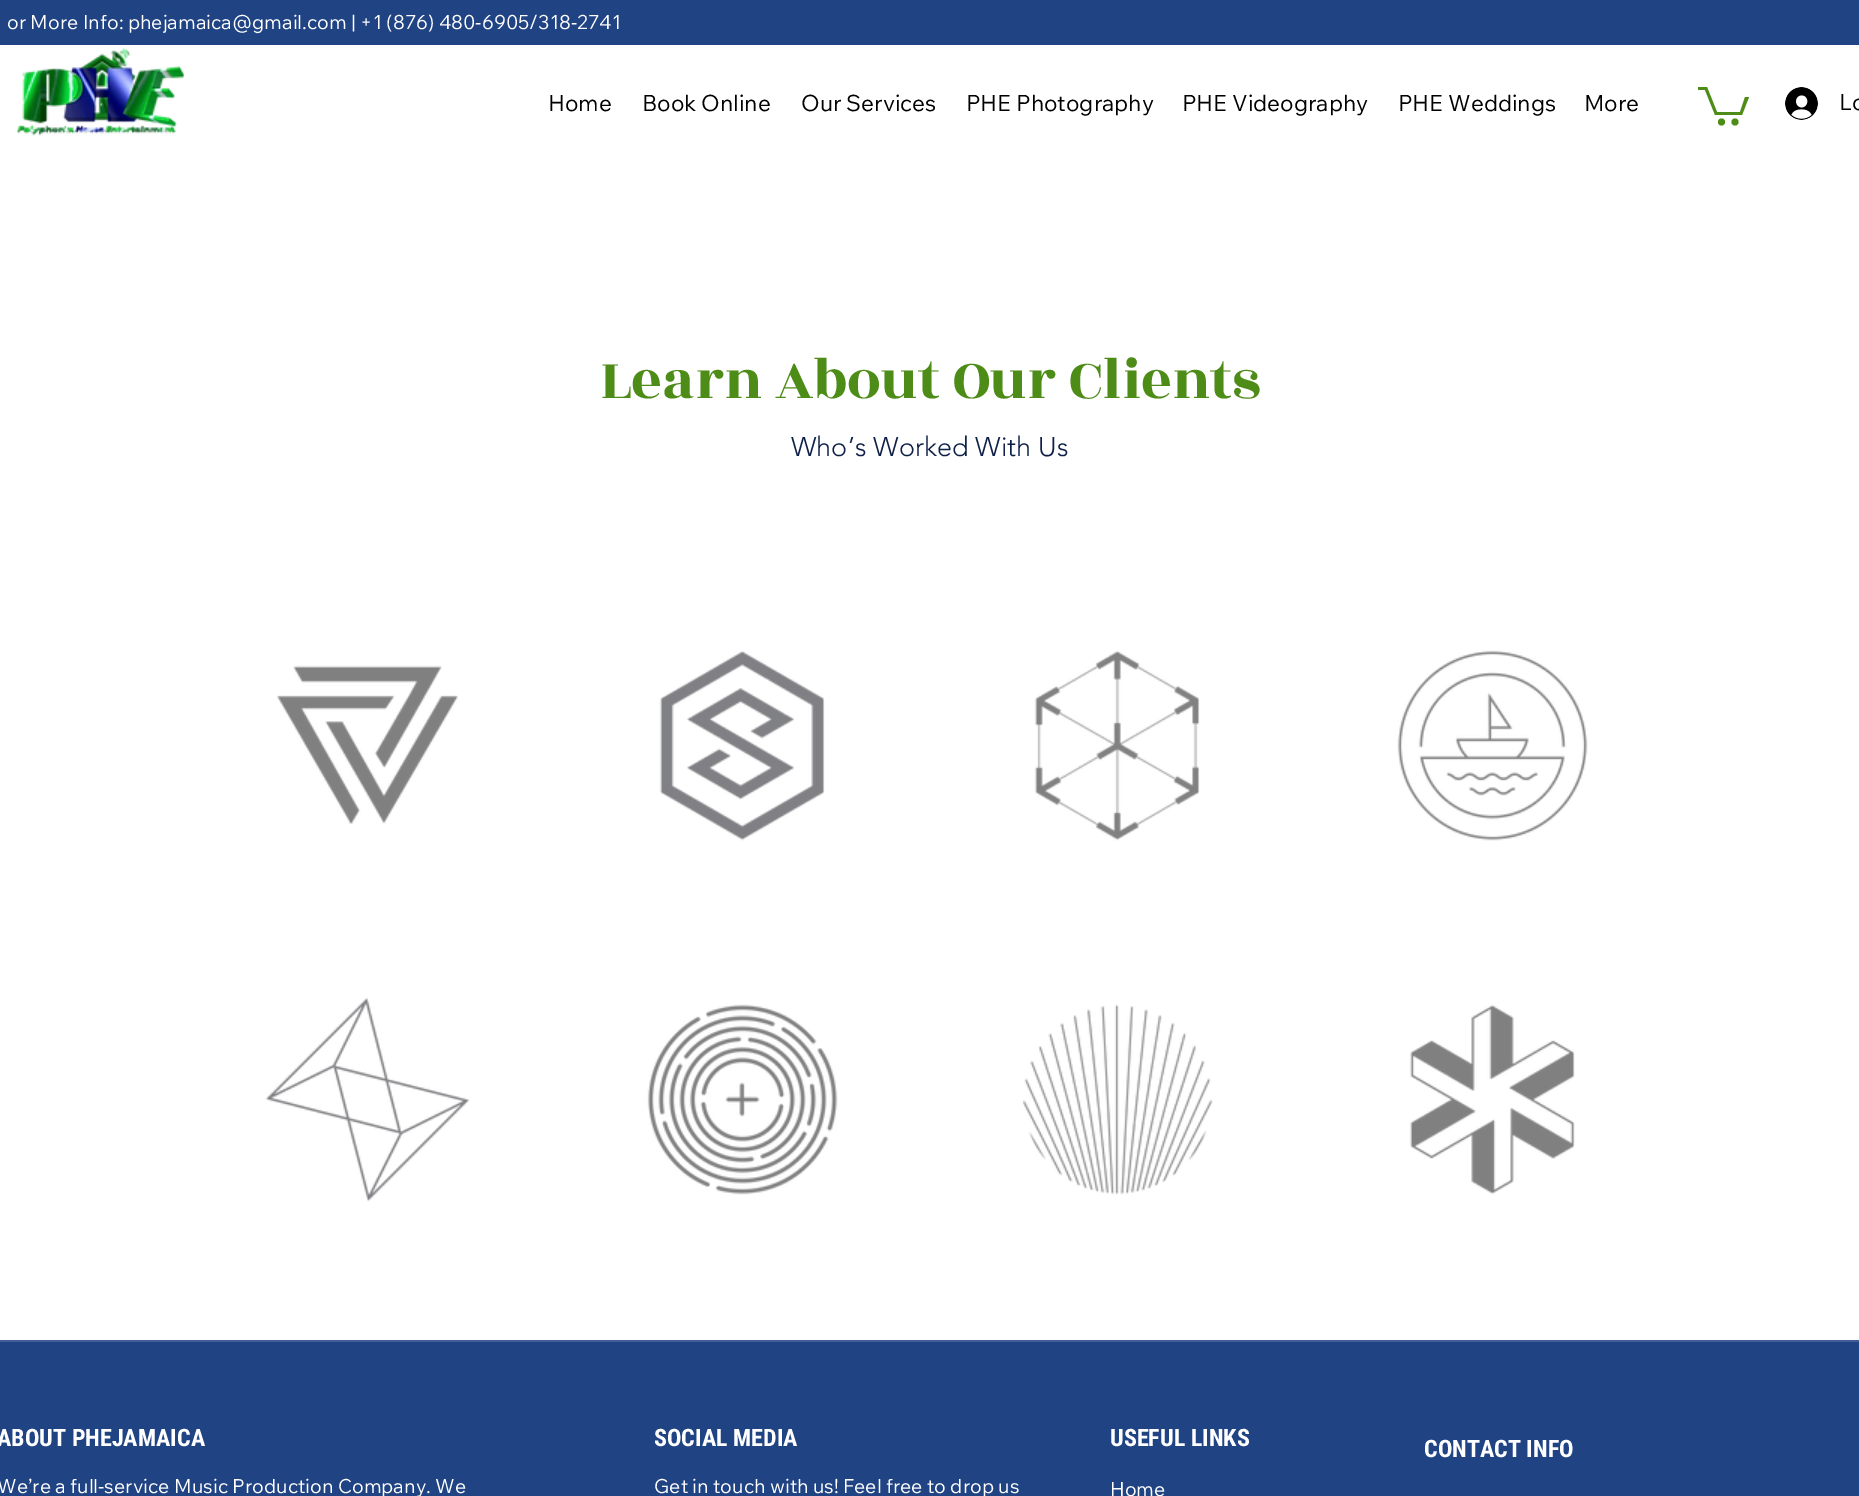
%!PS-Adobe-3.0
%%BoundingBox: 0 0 1859 1496
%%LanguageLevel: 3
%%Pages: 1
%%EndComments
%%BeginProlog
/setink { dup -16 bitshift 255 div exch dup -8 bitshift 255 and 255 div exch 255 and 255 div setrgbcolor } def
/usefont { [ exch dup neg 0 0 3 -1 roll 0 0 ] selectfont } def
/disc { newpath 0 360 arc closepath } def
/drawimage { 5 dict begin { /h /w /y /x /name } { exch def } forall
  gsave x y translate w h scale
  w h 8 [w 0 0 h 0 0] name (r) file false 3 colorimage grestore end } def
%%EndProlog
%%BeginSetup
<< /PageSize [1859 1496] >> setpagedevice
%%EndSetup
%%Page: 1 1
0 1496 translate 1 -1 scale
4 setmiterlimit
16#FFFFFF setink
0 0 1859 1496 rectfill
16#204383 setink
0 0 1859 45 rectfill
/WixMadeforText-Regular 19.5 usefont
16#FFFFFF setink
7 29 moveto (or More Info: phejamaica@gmail.com | +1 \(876\) 480-6905/318-2741) show
(img1.raw) 17 48 167 88 drawimage
/WixMadeforText-Regular 22.5 usefont
16#000000 setink
[
    [(Home) 548 111]
    [(Book Online) 642 111]
    [(Our Services) 801 111]
    [(PHE Photography) 966 111]
    [(PHE Videography) 1182 111]
    [(PHE Weddings) 1398 111]
    [(More) 1584 111]
] { aload pop moveto show } forall
16#4E8C18 setink
1749 97 moveto 1742 115 lineto 1715 115 lineto 1705 90 lineto 1698 90 lineto 1698 87 lineto 1707 87 lineto 1717 112 lineto 1740 112 lineto 1745 97 lineto fill
1735 122 3.5 disc fill
1721.5 122 3.5 disc fill
(img2.raw) 1785 87 33 33 drawimage
16#000000 setink
1839 110 moveto (Lo) show
/RozhaOne-Regular 60 usefont
16#4E8C18 setink
600 398 moveto (Learn About Our Clients) show
/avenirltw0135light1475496-Light 27 usefont
16#0F2048 setink
791 456 moveto (Who’s Worked With Us) show
(img3.raw) 277 665 181 159 drawimage
(img4.raw) 659 650 166 191 drawimage
(img5.raw) 1034 650 166 191 drawimage
(img6.raw) 1397 650 191 191 drawimage
(img7.raw) 265 997 205 205 drawimage
(img8.raw) 647 1004 191 191 drawimage
(img9.raw) 1022 1004 191 191 drawimage
(img10.raw) 1409 1004 166 191 drawimage
16#204383 setink
0 1342 1859 154 rectfill
16#415F96 setink
0 1340 1859 2 rectfill
/RobotoCondensed-Bold 24 usefont
16#FFFFFF setink
-3 1446 moveto (ABOUT PHEJAMAICA) show
/WixMadeforText-Regular 19.5 usefont
-3 1493 moveto (We’re a full-service Music Production Company. We) show
/RobotoCondensed-Bold 24 usefont
654 1446 moveto (SOCIAL MEDIA) show
/WixMadeforText-Regular 19.5 usefont
654 1493 moveto (Get in touch with us! Feel free to drop us) show
/RobotoCondensed-Bold 24 usefont
1110 1446 moveto (USEFUL LINKS) show
/WixMadeforText-Regular 19.5 usefont
1110 1496 moveto (Home) show
/RobotoCondensed-Bold 24 usefont
1424 1457 moveto (CONTACT INFO) show
showpage
%%EOF
